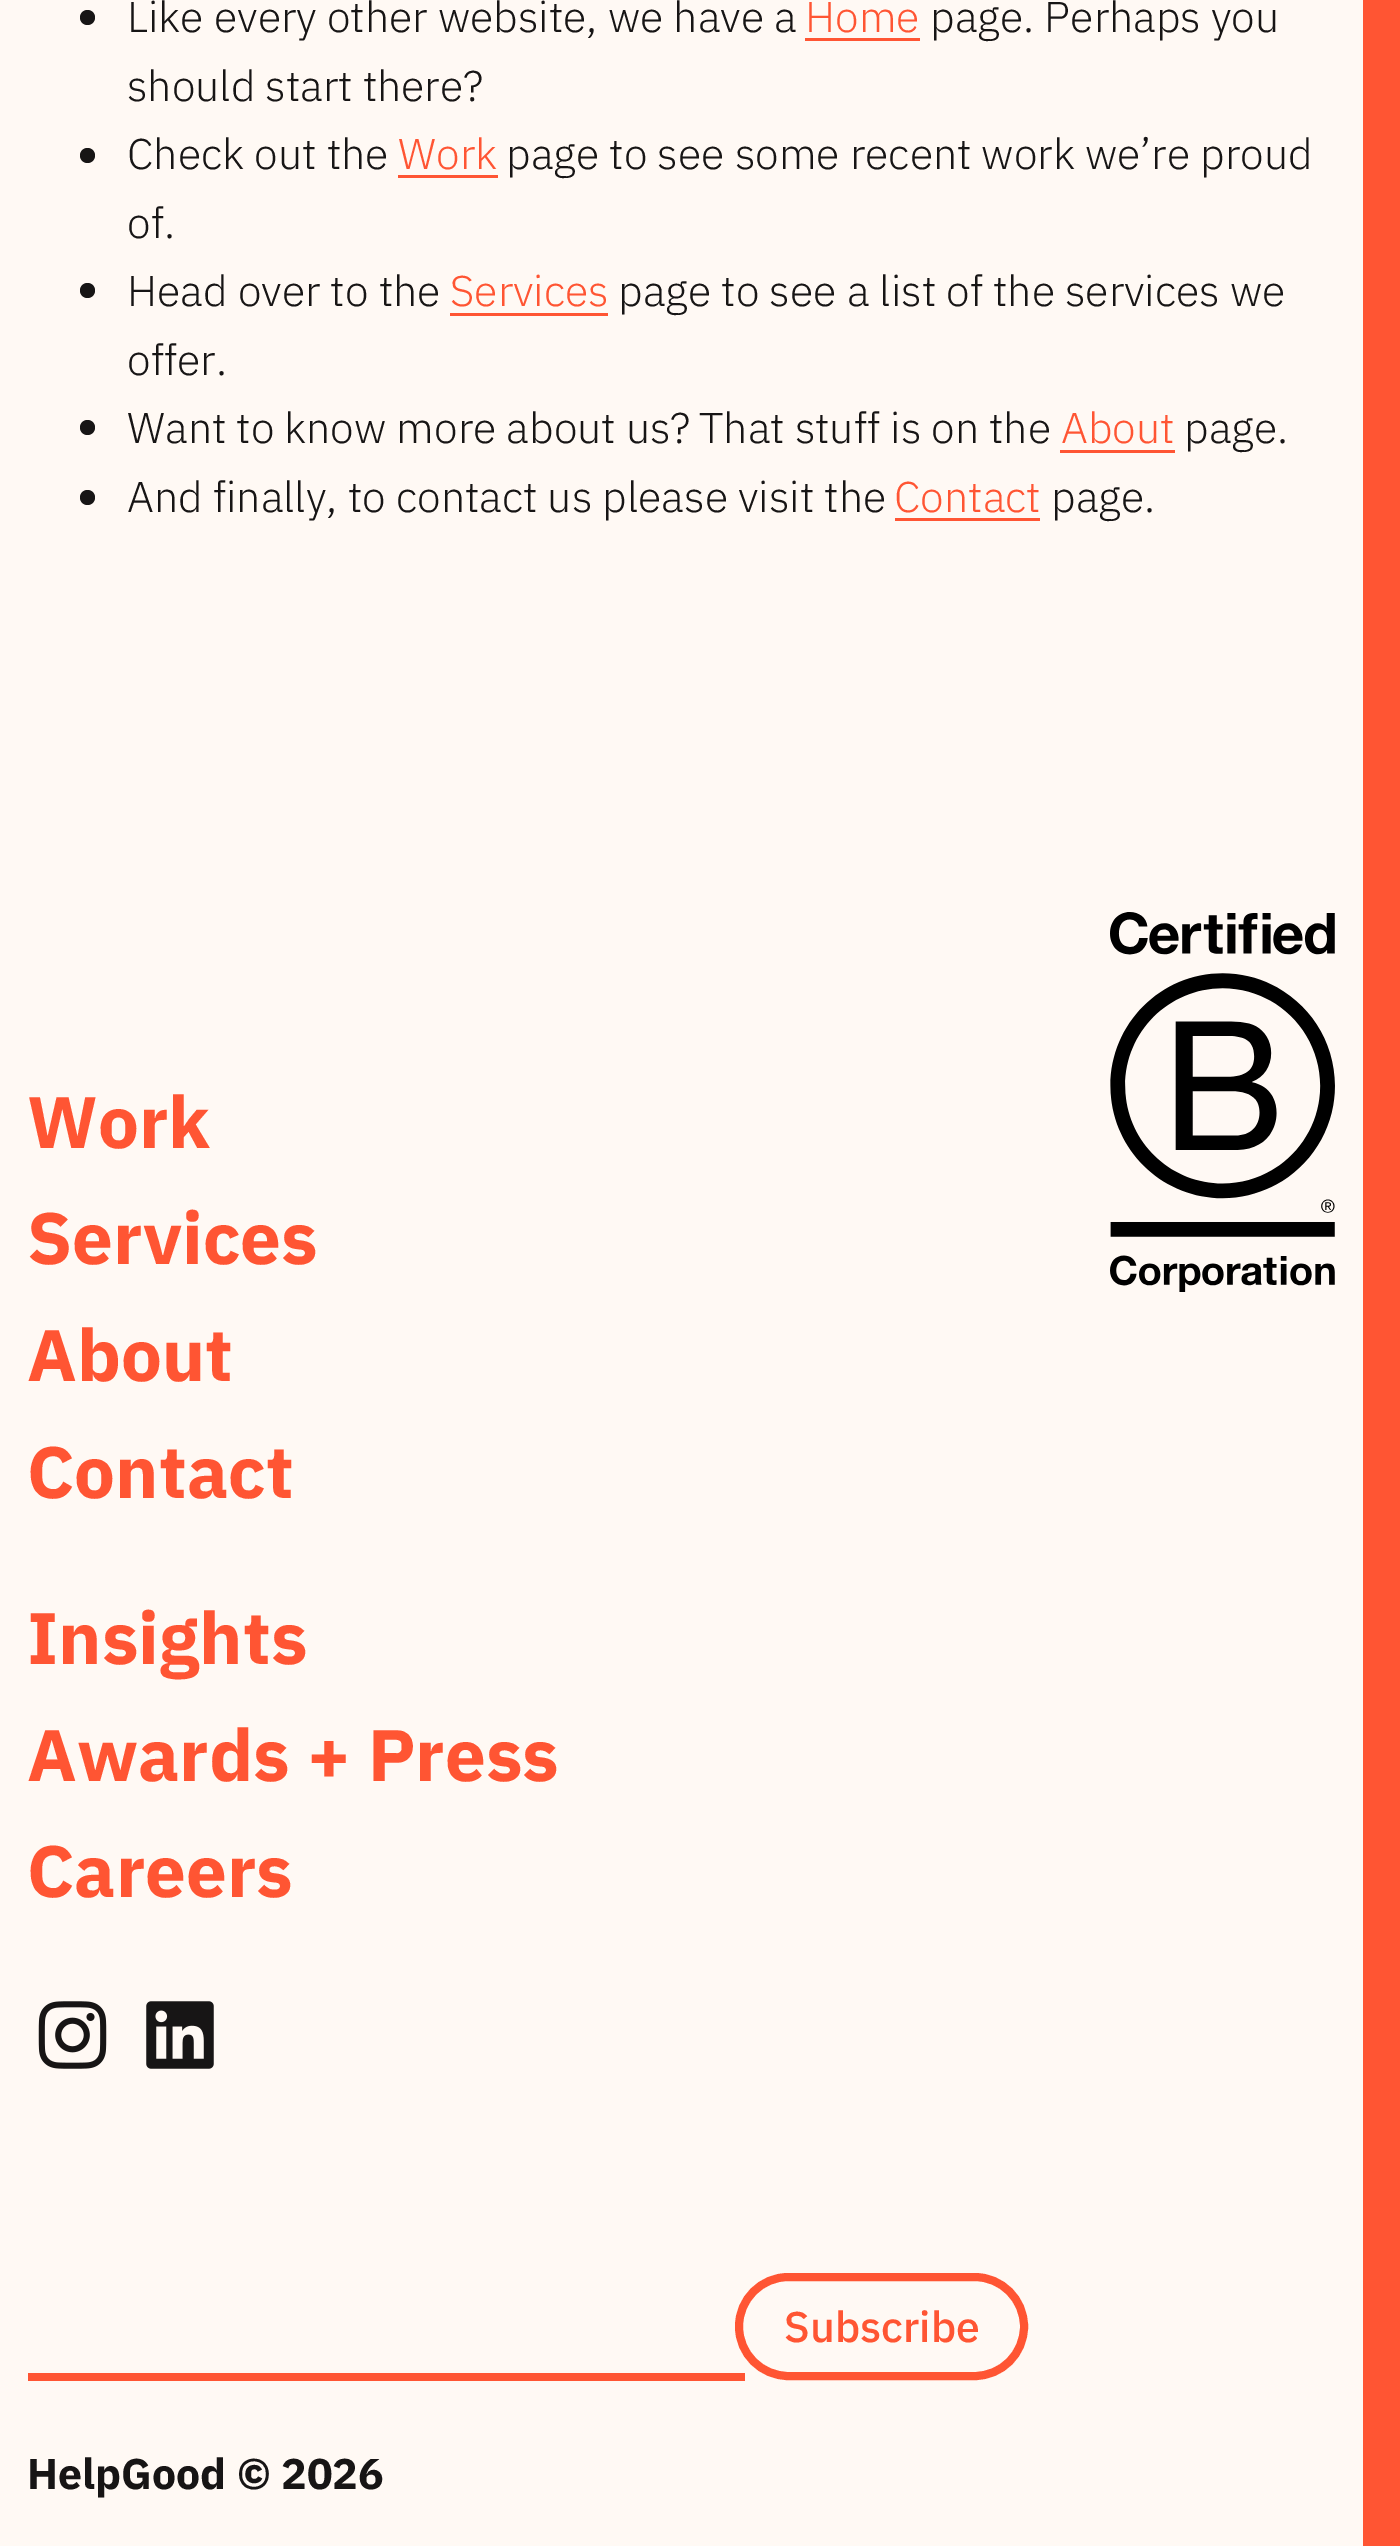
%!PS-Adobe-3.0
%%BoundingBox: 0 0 1400 2546
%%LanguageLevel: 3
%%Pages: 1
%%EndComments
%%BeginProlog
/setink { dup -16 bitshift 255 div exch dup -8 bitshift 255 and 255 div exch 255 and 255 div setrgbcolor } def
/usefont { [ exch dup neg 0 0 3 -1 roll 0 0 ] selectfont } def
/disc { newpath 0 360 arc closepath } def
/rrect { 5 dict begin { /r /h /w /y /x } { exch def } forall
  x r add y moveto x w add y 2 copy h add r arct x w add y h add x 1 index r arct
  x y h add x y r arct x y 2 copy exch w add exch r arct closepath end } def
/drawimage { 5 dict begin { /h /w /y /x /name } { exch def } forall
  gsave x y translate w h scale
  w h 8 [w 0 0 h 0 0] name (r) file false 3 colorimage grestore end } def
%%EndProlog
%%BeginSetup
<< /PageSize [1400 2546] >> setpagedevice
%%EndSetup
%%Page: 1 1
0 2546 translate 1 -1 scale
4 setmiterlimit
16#FF5533 setink
0 0 1400 2546 rectfill
16#FFF9F4 setink
0 0 1363 2546 rectfill
16#171515 setink
87.5 17.5 7.5 disc fill
/IBMPlexSans-Light 42.9 usefont
127 32 moveto (Like every other website, we have a) show
16#FF5533 setink
805 32 moveto (Home) show
805 38 115 3 rectfill
16#171515 setink
930 32 moveto (page. Perhaps you) show
127 101 moveto (should start there?) show
87.5 155.5 7.5 disc fill
127 169 moveto (Check out the) show
16#FF5533 setink
398 169 moveto (Work) show
398 175 100 3 rectfill
16#171515 setink
506 169 moveto (page to see some recent work we’re proud) show
127 238 moveto (of.) show
87.5 290.5 7.5 disc fill
127 306 moveto (Head over to the) show
16#FF5533 setink
450 306 moveto (Services) show
450 313 158 3 rectfill
16#171515 setink
618 306 moveto (page to see a list of the services we) show
127 375 moveto (offer.) show
87.5 427.5 7.5 disc fill
127 443 moveto (Want to know more about us?) show
699 443 moveto (That stuff is on the) show
16#FF5533 setink
1061 443 moveto (About) show
1060 450 115 3 rectfill
16#171515 setink
1184 443 moveto (page.) show
87.5 497.5 7.5 disc fill
127 512 moveto (And finally, to contact us please visit the) show
16#FF5533 setink
894 512 moveto (Contact) show
895 518 145 3 rectfill
16#171515 setink
1051 512 moveto (page.) show
/IBMPlexSans-Bold 72.75 usefont
16#FF5533 setink
[
    [(Work) 27 1148]
    [(Services) 27 1264]
    [(About) 27 1381]
    [(Contact) 27 1498]
    [(Insights) 27 1664]
    [(Awards + Press) 27 1781]
    [(Careers) 27 1897]
] { aload pop moveto show } forall
(img1.raw) 38 2001 69 68 drawimage
(img2.raw) 146 2001 68 68 drawimage
(img3.raw) 1110 912 225 380 drawimage
28 2373 717 8 rectfill
8 setlinewidth
739 2277 285 99 49.5 rrect stroke
/IBMPlexSans-Medium 42.9 usefont
784 2342 moveto (Subscribe) show
/IBMPlexSans-Bold 42.9 usefont
16#171515 setink
27 2489 moveto (HelpGood © 2026) show
showpage
%%EOF
